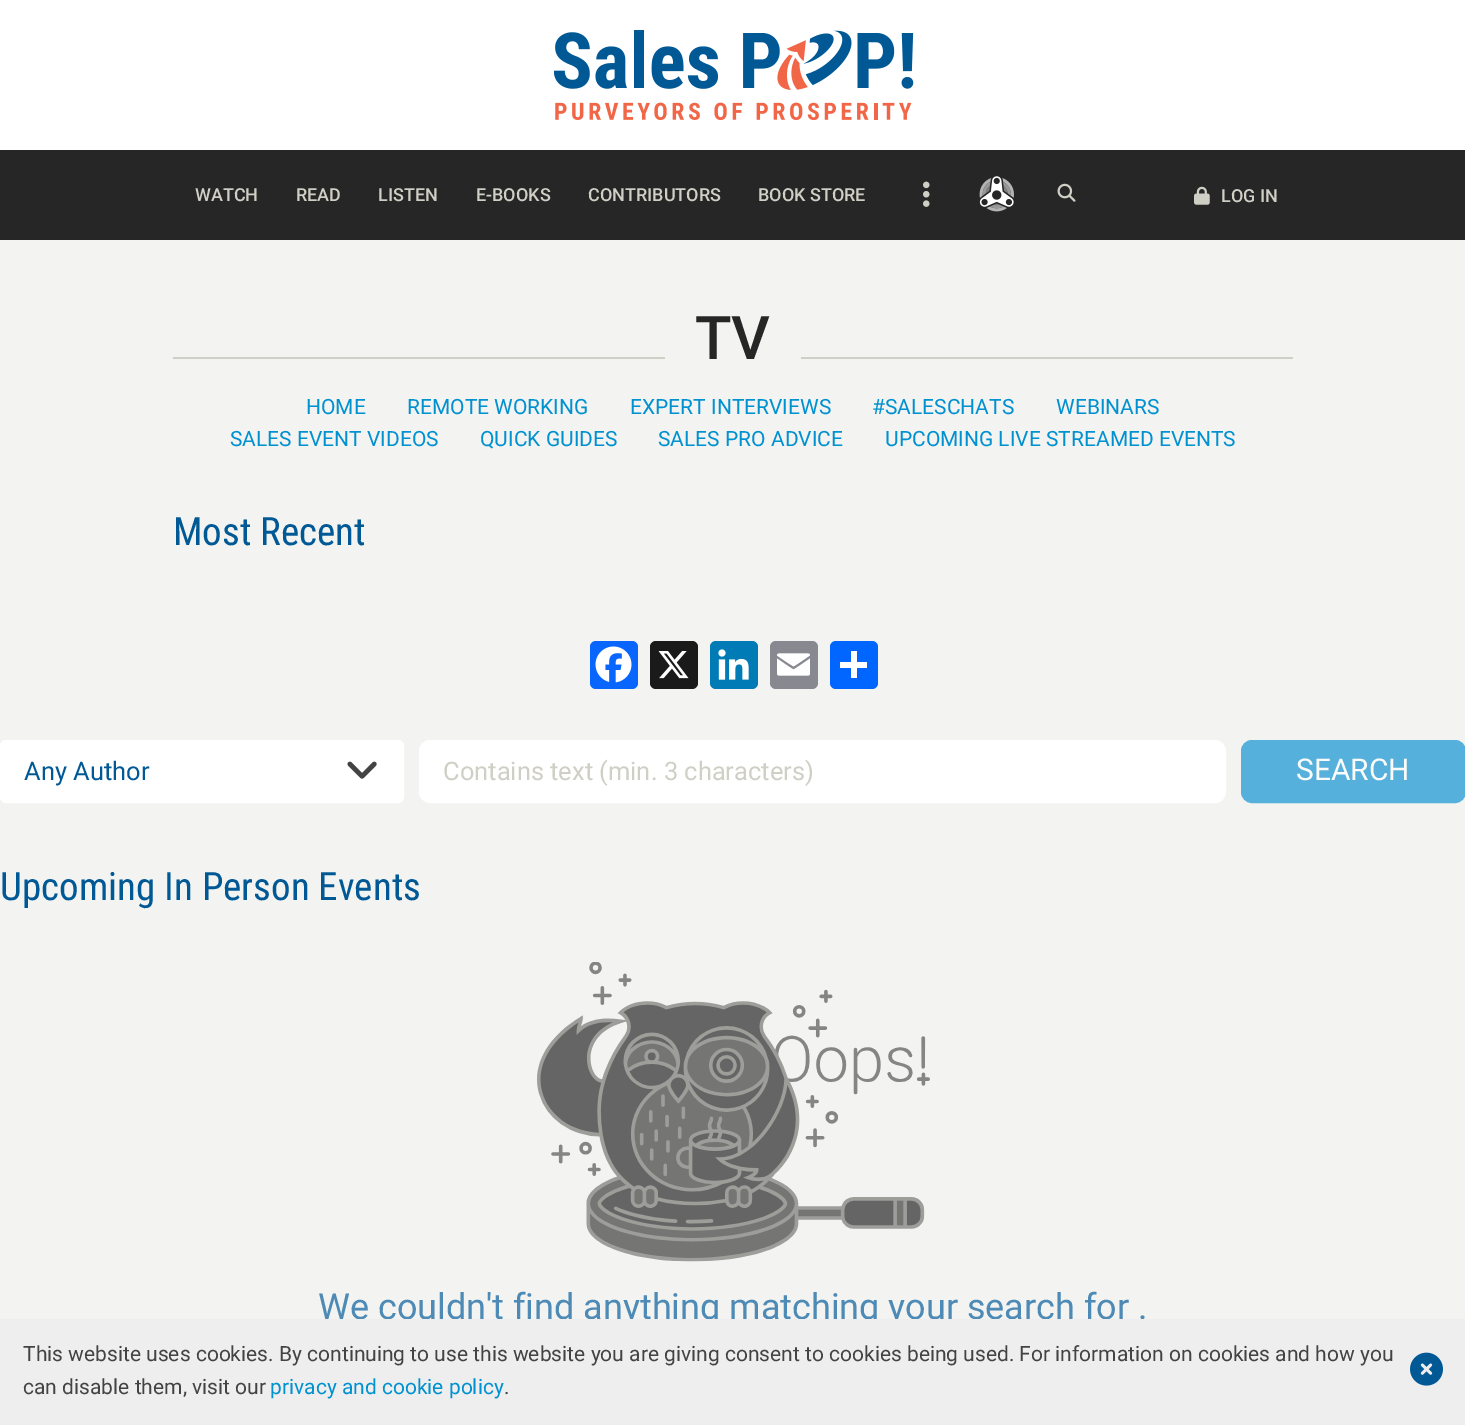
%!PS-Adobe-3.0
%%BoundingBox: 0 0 1465 1425
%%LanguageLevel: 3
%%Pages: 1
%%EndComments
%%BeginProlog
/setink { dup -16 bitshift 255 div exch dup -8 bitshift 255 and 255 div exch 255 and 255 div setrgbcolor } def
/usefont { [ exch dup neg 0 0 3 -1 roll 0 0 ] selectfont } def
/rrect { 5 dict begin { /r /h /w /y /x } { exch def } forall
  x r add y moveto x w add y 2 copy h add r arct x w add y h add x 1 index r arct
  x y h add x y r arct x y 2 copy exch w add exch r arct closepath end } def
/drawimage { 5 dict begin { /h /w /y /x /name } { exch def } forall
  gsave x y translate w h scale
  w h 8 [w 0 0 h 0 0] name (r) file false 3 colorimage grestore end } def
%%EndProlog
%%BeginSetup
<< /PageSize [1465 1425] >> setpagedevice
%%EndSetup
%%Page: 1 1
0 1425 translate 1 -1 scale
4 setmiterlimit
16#F3F3F1 setink
0 0 1465 1425 rectfill
16#FFFFFF setink
0 0 1465 150 rectfill
(img1.raw) 554 30 360 90 drawimage
16#262626 setink
0 150 1465 90 rectfill
/Roboto-Medium 18 usefont
16#CFCFC6 setink
[
    [(WATCH) 195 201]
    [(READ) 296 201]
    [(LISTEN) 378 201]
    [(E-BOOKS) 476 201]
    [(CONTRIBUTORS) 588 201]
    [(BOOK STORE) 758 201]
] { aload pop moveto show } forall
(img2.raw) 923 181 7 26 drawimage
(img3.raw) 979 176 35 36 drawimage
(img4.raw) 1057 183 19 19 drawimage
(img5.raw) 1194 186 16 19 drawimage
1221 202 moveto (LOG IN) show
173 357 1120 2 rectfill
16#F3F3F1 setink
665 357 136 2 rectfill
/Roboto-Medium 60 usefont
16#262626 setink
695 359 moveto (TV) show
/Roboto-Regular 21 usefont
16#0091D0 setink
[
    [(HOME) 306 414]
    [(REMOTE WORKING) 407 414]
    [(EXPERT INTERVIEWS) 630 414]
    [(#SALESCHATS) 872 414]
    [(WEBINARS) 1056 414]
    [(SALES EVENT VIDEOS) 230 446]
    [(QUICK GUIDES) 480 446]
    [(SALES PRO ADVICE) 658 446]
    [(UPCOMING LIVE STREAMED EVENTS) 885 446]
] { aload pop moveto show } forall
/RobotoCondensed-Regular 39 usefont
16#005895 setink
173 545 moveto (Most Recent) show
16#0866FF setink
590 641 48 48 6 rrect fill
(img6.raw) 595 646 37 37 drawimage
16#1A1A1A setink
650 641 48 48 6 rrect fill
(img7.raw) 658 651 31 28 drawimage
16#007BB5 setink
710 641 48 48 6 rrect fill
(img8.raw) 718 649 31 31 drawimage
16#888990 setink
770 641 48 48 6 rrect fill
(img9.raw) 777 653 33 23 drawimage
16#0166FF setink
830 641 48 48 6 rrect fill
16#FFFFFF setink
851 651 6 27 rectfill
840 662 27 6 rectfill
1 741 402 61 5 rrect gsave fill grestore
2 setlinewidth
stroke
/Roboto-Regular 25.5 usefont
16#005895 setink
24 780 moveto (Any Author) show
(img10.raw) 347 761 30 18 drawimage
16#FFFFFF setink
420 741 805 61 10 rrect gsave fill grestore
stroke
16#CFCFC6 setink
443 780 moveto (Contains text \(min. 3 characters\)) show
16#55B1DB setink
1242 741 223 61 10 rrect gsave fill grestore
stroke
/Roboto-Regular 30 usefont
16#FBFBFA setink
1296 780 moveto (SEARCH) show
/RobotoCondensed-Regular 39 usefont
16#005895 setink
0 900 moveto (Upcoming In Person Events) show
(img11.raw) 537 962 393 300 drawimage
/Roboto-Regular 36 usefont
16#4D8AB5 setink
318 1319 moveto (We couldn't find anything matching your search for .) show
16#EEEEEE setink
0 1319 1465 106 rectfill
/Roboto-Regular 21 usefont
16#434343 setink
23 1361 moveto (This website uses cookies. By continuing to use this website you are giving consent to cookies being used. For information on cookies and how you) show
23 1394 moveto (can disable them, visit our) show
16#0091D0 setink
270 1394 moveto (privacy and cookie policy) show
16#434343 setink
504 1394 moveto (.) show
(img12.raw) 1410 1352 33 34 drawimage
showpage
%%EOF
